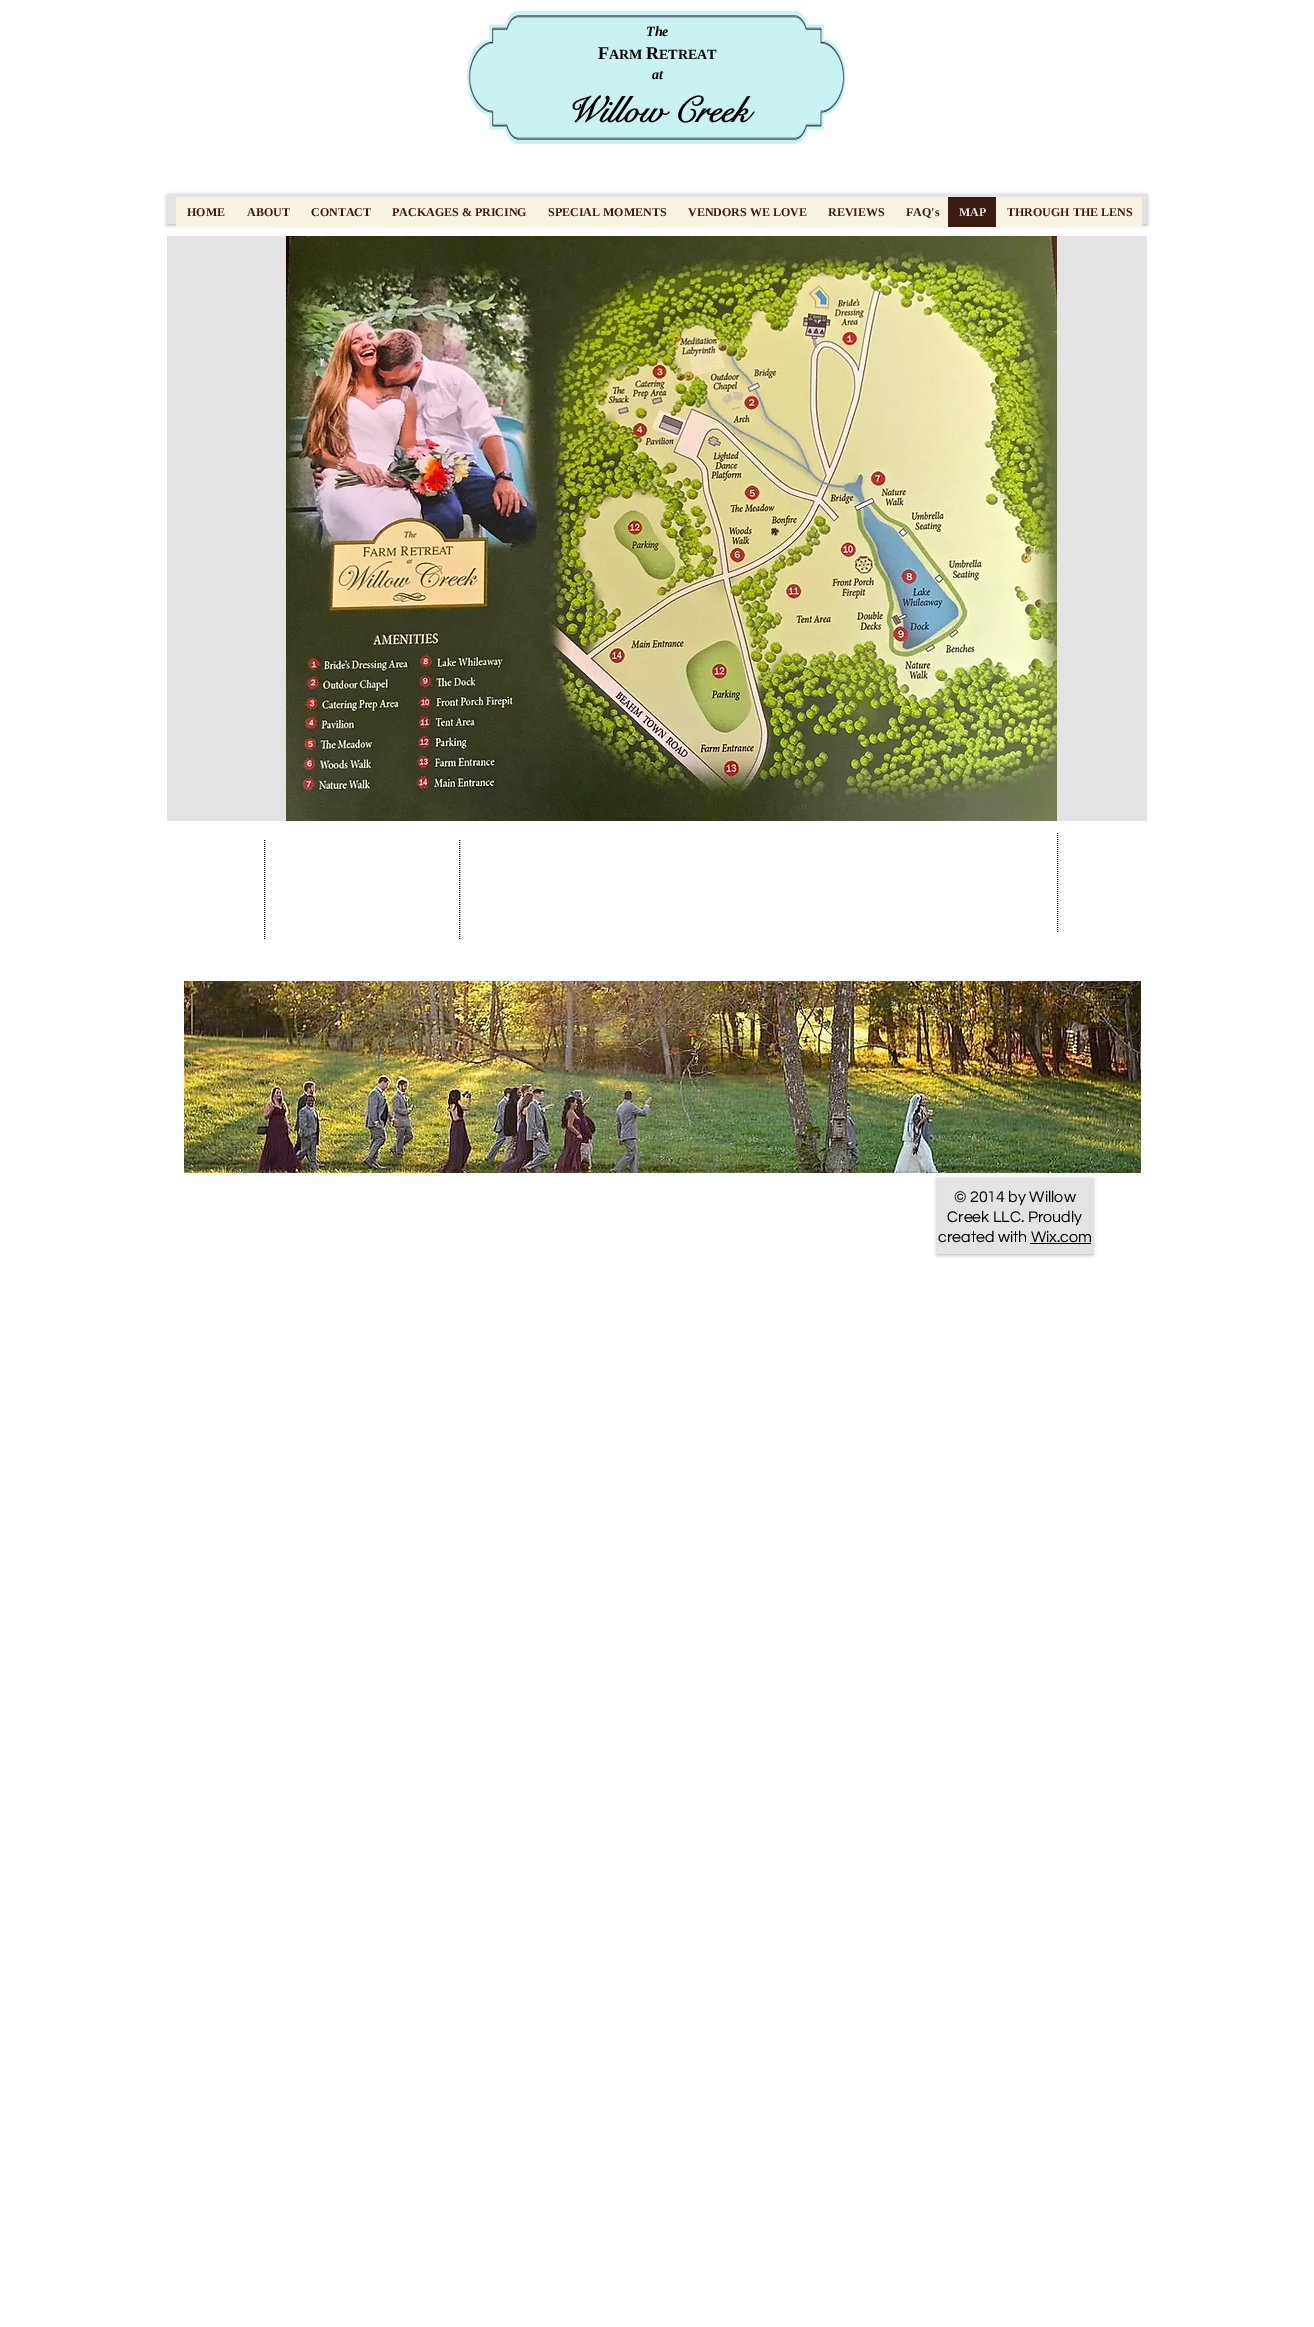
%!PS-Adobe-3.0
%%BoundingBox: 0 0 1314 2327
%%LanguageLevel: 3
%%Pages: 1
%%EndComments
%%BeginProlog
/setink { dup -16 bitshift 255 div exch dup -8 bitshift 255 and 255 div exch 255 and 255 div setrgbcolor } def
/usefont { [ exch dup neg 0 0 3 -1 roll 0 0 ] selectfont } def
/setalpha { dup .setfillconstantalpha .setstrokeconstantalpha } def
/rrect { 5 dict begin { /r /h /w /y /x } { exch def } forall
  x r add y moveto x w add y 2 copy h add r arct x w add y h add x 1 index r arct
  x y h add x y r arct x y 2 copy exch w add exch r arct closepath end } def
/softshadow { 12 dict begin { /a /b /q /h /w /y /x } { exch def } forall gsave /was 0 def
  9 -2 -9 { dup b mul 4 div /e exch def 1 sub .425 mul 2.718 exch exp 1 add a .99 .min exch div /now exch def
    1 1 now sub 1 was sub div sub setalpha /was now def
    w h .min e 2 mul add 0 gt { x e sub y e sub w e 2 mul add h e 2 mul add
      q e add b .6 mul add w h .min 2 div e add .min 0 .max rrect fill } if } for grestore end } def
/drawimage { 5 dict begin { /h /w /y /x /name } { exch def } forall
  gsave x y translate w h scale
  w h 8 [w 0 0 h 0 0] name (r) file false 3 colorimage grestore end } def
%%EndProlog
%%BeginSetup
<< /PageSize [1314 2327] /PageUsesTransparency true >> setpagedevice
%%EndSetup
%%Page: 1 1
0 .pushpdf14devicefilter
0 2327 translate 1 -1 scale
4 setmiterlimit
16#FFFFFF setink
0 0 1314 2327 rectfill
(img1.raw) 467 11 379 133 drawimage
/LiberationSerif-BoldItalic 14 usefont
16#000000 setink
646 36 moveto (The) show
/LiberationSerif-Bold 18 usefont
598 59 moveto (F) show
/LiberationSerif-Bold 14 usefont
609 59 moveto (ARM) show
/LiberationSerif-Bold 18 usefont
646 59 moveto (R) show
/LiberationSerif-Bold 14 usefont
659 59 moveto (ETREAT) show
/LiberationSerif-BoldItalic 14 usefont
652 79 moveto (at) show
/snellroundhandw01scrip-Bold 36 usefont
566 122 moveto (Willow Creek) show
167 195 980 30 0 2 0.3 softshadow
16#E3E3E3 setink
167 194 980 30 rectfill
16#F7F2E2 setink
176 197 966 30 rectfill
/LiberationSerif-Bold 12 usefont
16#3A1C13 setink
[
    [(HOME) 187 216]
    [(ABOUT) 247 216]
    [(CONTACT) 311 216]
    [(PACKAGES & PRICING) 392 216]
    [(SPECIAL MOMENTS) 548 216]
    [(VENDORS WE LOVE) 688 216]
    [(REVIEWS) 828 216]
    [(FAQ's) 906 216]
] { aload pop moveto show } forall
948 197 48 30 rectfill
16#E3E3E3 setink
959 216 moveto (MAP) show
16#3A1C13 setink
1007 216 moveto (THROUGH THE LENS) show
16#E3E3E3 setink
167 236 980 585 rectfill
(img2.raw) 286 236 771 585 drawimage
16#000000 setink
[1 1] 0 setdash
264.5 840 moveto 264.5 940 lineto stroke
459.5 840 moveto 459.5 940 lineto stroke
1057.5 833 moveto 1057.5 933 lineto stroke
(img3.raw) 184 981 957 192 drawimage
937 1179 156 76 0 2 0.3 softshadow
16#E3E3E3 setink
937 1178 156 76 rectfill
/Questrial-Regular 16 usefont
16#000000 setink
[
    [(© 2014 by Willow) 954 1202]
    [(Creek LLC. Proudly) 947 1222]
    [(created with Wix.com) 938 1242]
] { aload pop moveto show } forall
1030 1243 61 1 rectfill
.poppdf14devicefilter showpage
%%EOF
